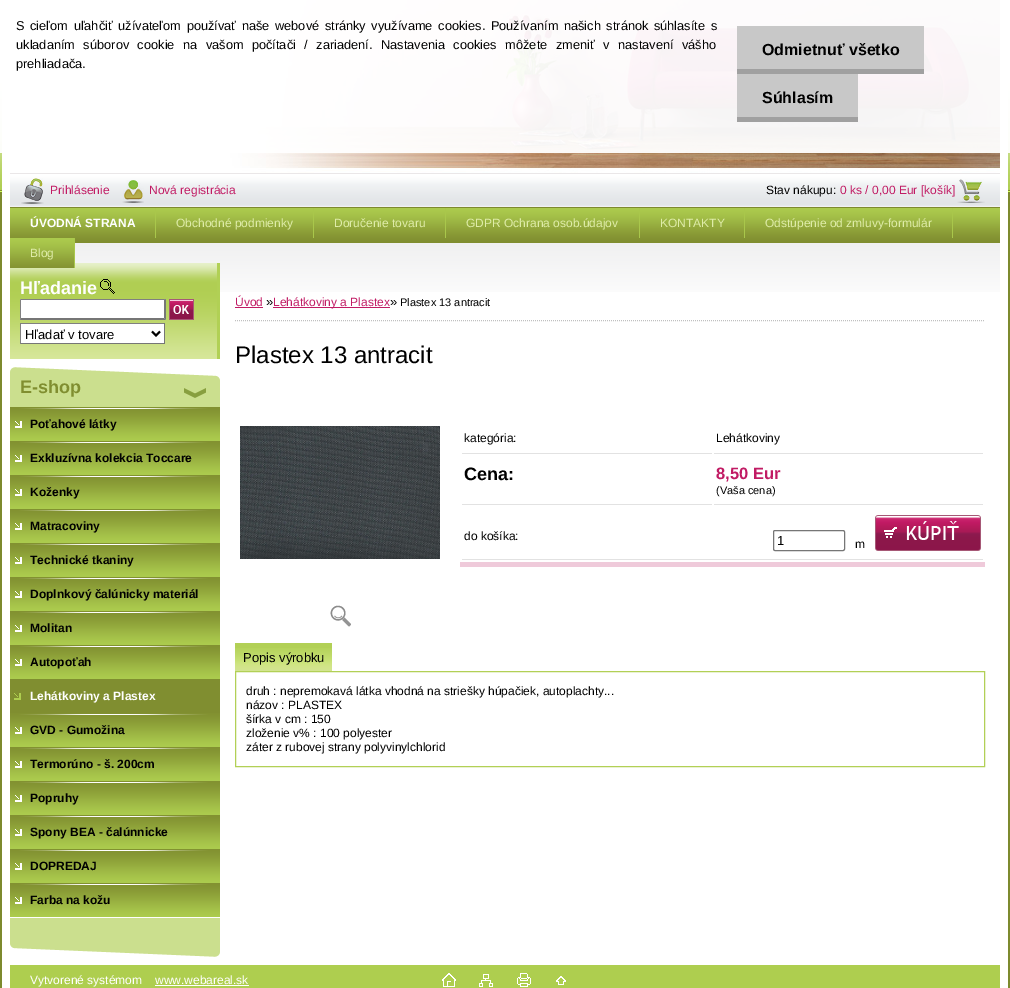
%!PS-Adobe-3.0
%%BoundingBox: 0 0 1010 988
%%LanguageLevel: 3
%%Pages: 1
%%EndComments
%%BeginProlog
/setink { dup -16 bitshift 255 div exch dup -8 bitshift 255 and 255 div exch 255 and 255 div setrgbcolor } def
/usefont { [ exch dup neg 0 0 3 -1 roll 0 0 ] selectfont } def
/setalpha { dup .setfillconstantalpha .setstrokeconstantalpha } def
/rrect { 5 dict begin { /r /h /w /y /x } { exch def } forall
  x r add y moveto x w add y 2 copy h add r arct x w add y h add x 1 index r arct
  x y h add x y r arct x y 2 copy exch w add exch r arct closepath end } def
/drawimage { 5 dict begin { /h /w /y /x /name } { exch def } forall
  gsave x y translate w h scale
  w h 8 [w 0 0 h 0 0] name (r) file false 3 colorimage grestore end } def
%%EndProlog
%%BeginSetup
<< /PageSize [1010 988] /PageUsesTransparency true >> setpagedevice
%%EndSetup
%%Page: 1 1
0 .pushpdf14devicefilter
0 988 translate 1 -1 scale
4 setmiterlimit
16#7D8A2E setink
0 0 1010 988 rectfill
(img1.raw) 0 0 1010 192 drawimage
16#FFFFFF setink
2 74 1006 914 rectfill
(img2.raw) 10 0 990 173 drawimage
0.95 setalpha
0 0 1010 153 rectfill
/LiberationSans-Regular 12.8 usefont
1 setalpha
16#000000 setink
16 30 moveto 2 0 32 (S cieľom uľahčiť užívateľom používať naše webové stránky využívame cookies. Používaním našich stránok súhlasíte s) widthshow
16 49 moveto 4.9 0 32 (ukladaním súborov cookie na vašom počítači / zariadení. Nastavenia cookies môžete zmeniť v nastavení vášho) widthshow
16 68 moveto (prehliadača.) show
16#C8C8C8 setink
737 26 187 43 rectfill
16#A0A0A0 setink
737 69 187 5 rectfill
/LiberationSans-Bold 16 usefont
16#000000 setink
762 55 moveto (Odmietnuť všetko) show
16#C8C8C8 setink
737 74 121 43 rectfill
16#A0A0A0 setink
737 117 121 5 rectfill
16#000000 setink
762 103 moveto (Súhlasím) show
(img3.raw) 10 173 990 35 drawimage
(img4.raw) 21 178 23 26 drawimage
/LiberationSans-Regular 12 usefont
16#C11B64 setink
50 194 moveto (Prihlásenie) show
(img5.raw) 122 180 22 23 drawimage
149 194 moveto (Nová registrácia) show
(img6.raw) 957 179 28 24 drawimage
16#000000 setink
766 194 moveto (Stav nákupu:) show
16#C11B64 setink
840 194 moveto (0 ks / 0,00 Eur [košík]) show
(img7.raw) 10 208 990 35 drawimage
16#A9C74B setink
155 208 1 30 rectfill
/LiberationSans-Bold 12 usefont
16#FFFFFF setink
30 227 moveto (ÚVODNÁ STRANA) show
16#A9C74B setink
313 208 1 30 rectfill
/LiberationSans-Regular 12 usefont
16#DFECA9 setink
176 227 moveto (Obchodné podmienky) show
16#A9C74B setink
445 208 1 30 rectfill
16#DFECA9 setink
334 227 moveto (Doručenie tovaru) show
16#A9C74B setink
639 208 1 30 rectfill
16#DFECA9 setink
466 227 moveto (GDPR Ochrana osob.údajov) show
16#A9C74B setink
744 208 1 30 rectfill
16#DFECA9 setink
660 227 moveto (KONTAKTY) show
16#A9C74B setink
952 208 1 30 rectfill
16#DFECA9 setink
765 227 moveto (Odstúpenie od zmluvy-formulár) show
(img9.raw) 75 243 925 49 drawimage
(img10.raw) 10 263 210 96 drawimage
(img8.raw) 10 238 64 30 drawimage
16#A9C74B setink
74 238 1 30 rectfill
16#DFECA9 setink
30 257 moveto (Blog) show
/LiberationSans-Bold 18 usefont
16#FFFFFF setink
20 294 moveto (Hľadanie) show
(img11.raw) 100 279 15 15 drawimage
20 299 146 21 rectfill
16#808080 setink
20 299 moveto 166 299 lineto 164 300 lineto 21 300 lineto closepath fill
16#767676 setink
166 299 moveto 166 320 lineto 164 318 lineto 164 300 lineto closepath fill
166 320 moveto 20 320 lineto 21 318 lineto 164 318 lineto closepath fill
16#808080 setink
20 320 moveto 20 299 lineto 21 300 lineto 21 318 lineto closepath fill
(img12.raw) 169 299 25 21 drawimage
[
    [21 324 143 19 16#FFFFFF]
    [20 323 145 1 16#808080]
    [164 323 1 21 16#767676]
    [20 343 145 1 16#767676]
    [20 323 1 21 16#808080]
] { aload pop setink rectfill } forall
16#000000 setink
2 setlinewidth
152 331.5 moveto 156 335.5 lineto 160 331.5 lineto stroke
/LiberationSans-Regular 13 usefont
25 339 moveto (Hľadať v tovare) show
(img13.raw) 10 367 210 40 drawimage
/LiberationSans-Bold 18 usefont
16#808E30 setink
20 393 moveto (E-shop) show
(img14.raw) 10 407 210 34 drawimage
/LiberationSans-Bold 12 usefont
16#000000 setink
30 428 moveto (Poťahové látky) show
(img14.raw) 10 441 210 34 drawimage
30 462 moveto (Exkluzívna kolekcia Toccare) show
(img14.raw) 10 475 210 34 drawimage
30 496 moveto (Koženky) show
(img14.raw) 10 509 210 34 drawimage
30 530 moveto (Matracoviny) show
(img14.raw) 10 543 210 34 drawimage
30 564 moveto (Technické tkaniny) show
(img14.raw) 10 577 210 34 drawimage
30 598 moveto (Doplnkový čalúnicky materiál) show
(img14.raw) 10 611 210 34 drawimage
30 632 moveto (Molitan) show
(img14.raw) 10 645 210 34 drawimage
30 666 moveto (Autopoťah) show
(img15.raw) 10 679 210 34 drawimage
16#FFFFFF setink
30 700 moveto (Lehátkoviny a Plastex) show
(img14.raw) 10 713 210 34 drawimage
16#000000 setink
30 734 moveto (GVD - Gumožina) show
(img14.raw) 10 747 210 34 drawimage
30 768 moveto (Termorúno - š. 200cm) show
(img14.raw) 10 781 210 34 drawimage
30 802 moveto (Popruhy) show
(img14.raw) 10 815 210 34 drawimage
30 836 moveto (Spony BEA - čalúnnicke) show
(img14.raw) 10 849 210 34 drawimage
30 870 moveto (DOPREDAJ) show
(img14.raw) 10 883 210 34 drawimage
30 904 moveto (Farba na kožu) show
(img16.raw) 10 918 210 39 drawimage
16#C0C0C0 setink
1 setlinewidth
[1 1] 0 setdash
235 320.5 moveto 985 320.5 lineto stroke
/LiberationSans-Regular 12 usefont
16#C11B64 setink
235 306 moveto (Úvod) show
235 307 28 1 rectfill
/LiberationSans-Regular 13 usefont
16#000000 setink
266 306 moveto (») show
16#C11B64 setink
273 307 117 1 rectfill
/LiberationSans-Regular 12 usefont
273 306 moveto (Lehátkoviny a Plastex) show
/LiberationSans-Regular 13 usefont
16#000000 setink
390 306 moveto (») show
/LiberationSans-Regular 11 usefont
400 306 moveto (Plastex 13 antracit) show
/LiberationSans-Regular 24 usefont
235 363 moveto (Plastex 13 antracit) show
(img17.raw) 240 426 200 133 drawimage
(img18.raw) 330 605 21 22 drawimage
16#EFCADA setink
460 562 525 5 rectfill
16#E2E2E2 setink
462 453 250 1 rectfill
/LiberationSans-Regular 12 usefont
16#000000 setink
464 442 moveto (kategória:) show
16#E2E2E2 setink
714 453 269 1 rectfill
16#000000 setink
716 442 moveto (Lehátkoviny) show
16#E2E2E2 setink
462 504 250 1 rectfill
/LiberationSans-Bold 18 usefont
16#000000 setink
464 480 moveto (Cena:) show
16#E2E2E2 setink
714 504 269 1 rectfill
/LiberationSans-Bold 16.5 usefont
16#C11B64 setink
716 479 moveto (8,50 Eur) show
/LiberationSans-Regular 11 usefont
16#000000 setink
716 494 moveto (\(Vaša cena\)) show
16#E2E2E2 setink
462 559 521 1 rectfill
/LiberationSans-Regular 12 usefont
16#000000 setink
464 540 moveto (do košíka:) show
16#767676 setink
[] 0 setdash
773.5 530.5 71 20 1.5 rrect stroke
/LiberationSans-Regular 13 usefont
16#000000 setink
777 545 moveto (1) show
/LiberationSans-Regular 12 usefont
855 548 moveto (m) show
(img19.raw) 875 515 106 36 drawimage
16#B2D056 setink
235 643 97 5 rectfill
(img20.raw) 235 648 97 23 drawimage
/LiberationSans-Regular 13 usefont
16#000000 setink
243 662 moveto (Popis výrobku) show
16#B2D056 setink
235.5 671.5 749 95 rectstroke
/LiberationSans-Regular 12 usefont
16#000000 setink
[
    [(druh : nepremokavá látka vhodná na striešky húpačiek, autoplachty...) 246 695]
    [(názov : PLASTEX) 246 709]
    [(šírka v cm : 150) 246 723]
    [(zloženie v% : 100 polyester) 246 737]
    [(záter z rubovej strany polyvinylchlorid) 246 751]
] { aload pop moveto show } forall
16#AECE4F setink
10 965 990 23 rectfill
16#FFFFFF setink
30 984 moveto (Vytvorené systémom) show
155 984 moveto (www.webareal.sk) show
155 985 94 1 rectfill
(img21.raw) 442 973 14 14 drawimage
(img22.raw) 479 974 14 13 drawimage
(img23.raw) 517 973 14 14 drawimage
(img24.raw) 556 976 10 9 drawimage
.poppdf14devicefilter showpage
%%EOF
